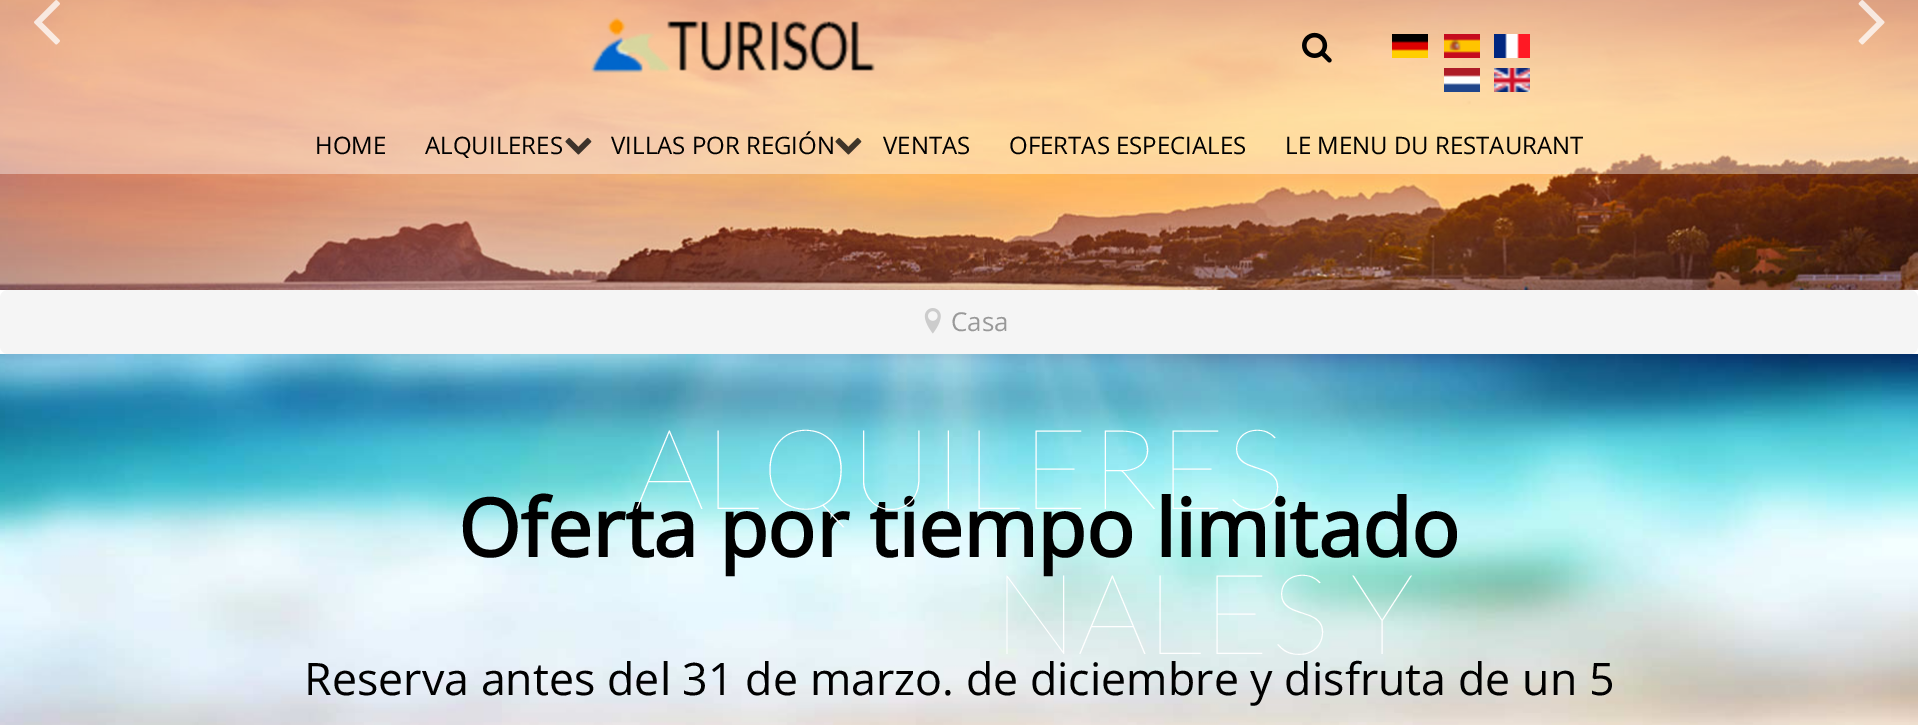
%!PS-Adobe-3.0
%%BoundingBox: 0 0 1918 725
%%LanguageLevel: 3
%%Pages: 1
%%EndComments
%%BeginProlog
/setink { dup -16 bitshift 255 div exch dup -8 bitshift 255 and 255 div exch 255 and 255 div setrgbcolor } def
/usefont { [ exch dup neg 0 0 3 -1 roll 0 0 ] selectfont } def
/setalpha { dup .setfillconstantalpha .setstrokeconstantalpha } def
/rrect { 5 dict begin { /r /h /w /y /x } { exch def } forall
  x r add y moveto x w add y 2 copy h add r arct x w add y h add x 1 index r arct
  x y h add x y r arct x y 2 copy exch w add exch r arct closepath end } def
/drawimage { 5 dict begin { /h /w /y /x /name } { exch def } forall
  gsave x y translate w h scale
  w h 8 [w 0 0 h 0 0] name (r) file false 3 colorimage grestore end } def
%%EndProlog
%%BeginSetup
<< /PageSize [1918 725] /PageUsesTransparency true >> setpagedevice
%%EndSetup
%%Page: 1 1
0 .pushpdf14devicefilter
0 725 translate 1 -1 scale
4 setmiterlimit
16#FFFFFF setink
0 0 1918 725 rectfill
(img10.raw) 0 0 1918 290 drawimage
(img11.raw) 34 0 26 45 drawimage
(img12.raw) 1858 0 27 45 drawimage
0.4 setalpha
0 0 1918 174 rectfill
1 setalpha
(img1.raw) 591 17 284 56 drawimage
(img2.raw) 1302 32 30 31 drawimage
(img3.raw) 1392 34 36 24 drawimage
(img4.raw) 1444 34 36 24 drawimage
(img5.raw) 1494 34 36 24 drawimage
(img6.raw) 1444 68 36 24 drawimage
(img7.raw) 1494 68 36 24 drawimage
/OpenSans-Regular 24 usefont
16#000000 setink
315 154 moveto (HOME) show
425 154 moveto (ALQUILERES) show
(img8.raw) 565 137 27 18 drawimage
611 154 moveto (VILLAS POR REGIÓN) show
(img9.raw) 835 137 27 18 drawimage
[
    [(VENTAS) 883 154]
    [(OFERTAS ESPECIALES) 1009 154]
    [(LE MENU DU RESTAURANT) 1285 154]
] { aload pop moveto show } forall
16#F5F5F5 setink
0 290 1918 64 8 rrect fill
(img13.raw) 924 308 17 26 drawimage
/OpenSans-Regular 26 usefont
16#999999 setink
951 331 moveto (Casa) show
(img14.raw) 0 354 1918 371 drawimage
/OpenSans-Bold 80 usefont
16#000000 setink
458 557 moveto (Oferta por tiempo limitado) show
/Lato-Thin 112 usefont
16#FFFFFF setink
635 509 moveto (ALQUILERES) show
993 654 moveto (NALES Y) show
/OpenSans-Regular 44.8 usefont
16#000000 setink
304 695 moveto (Reserva antes del 31 de marzo. de diciembre y disfruta de un 5) show
.poppdf14devicefilter showpage
%%EOF
